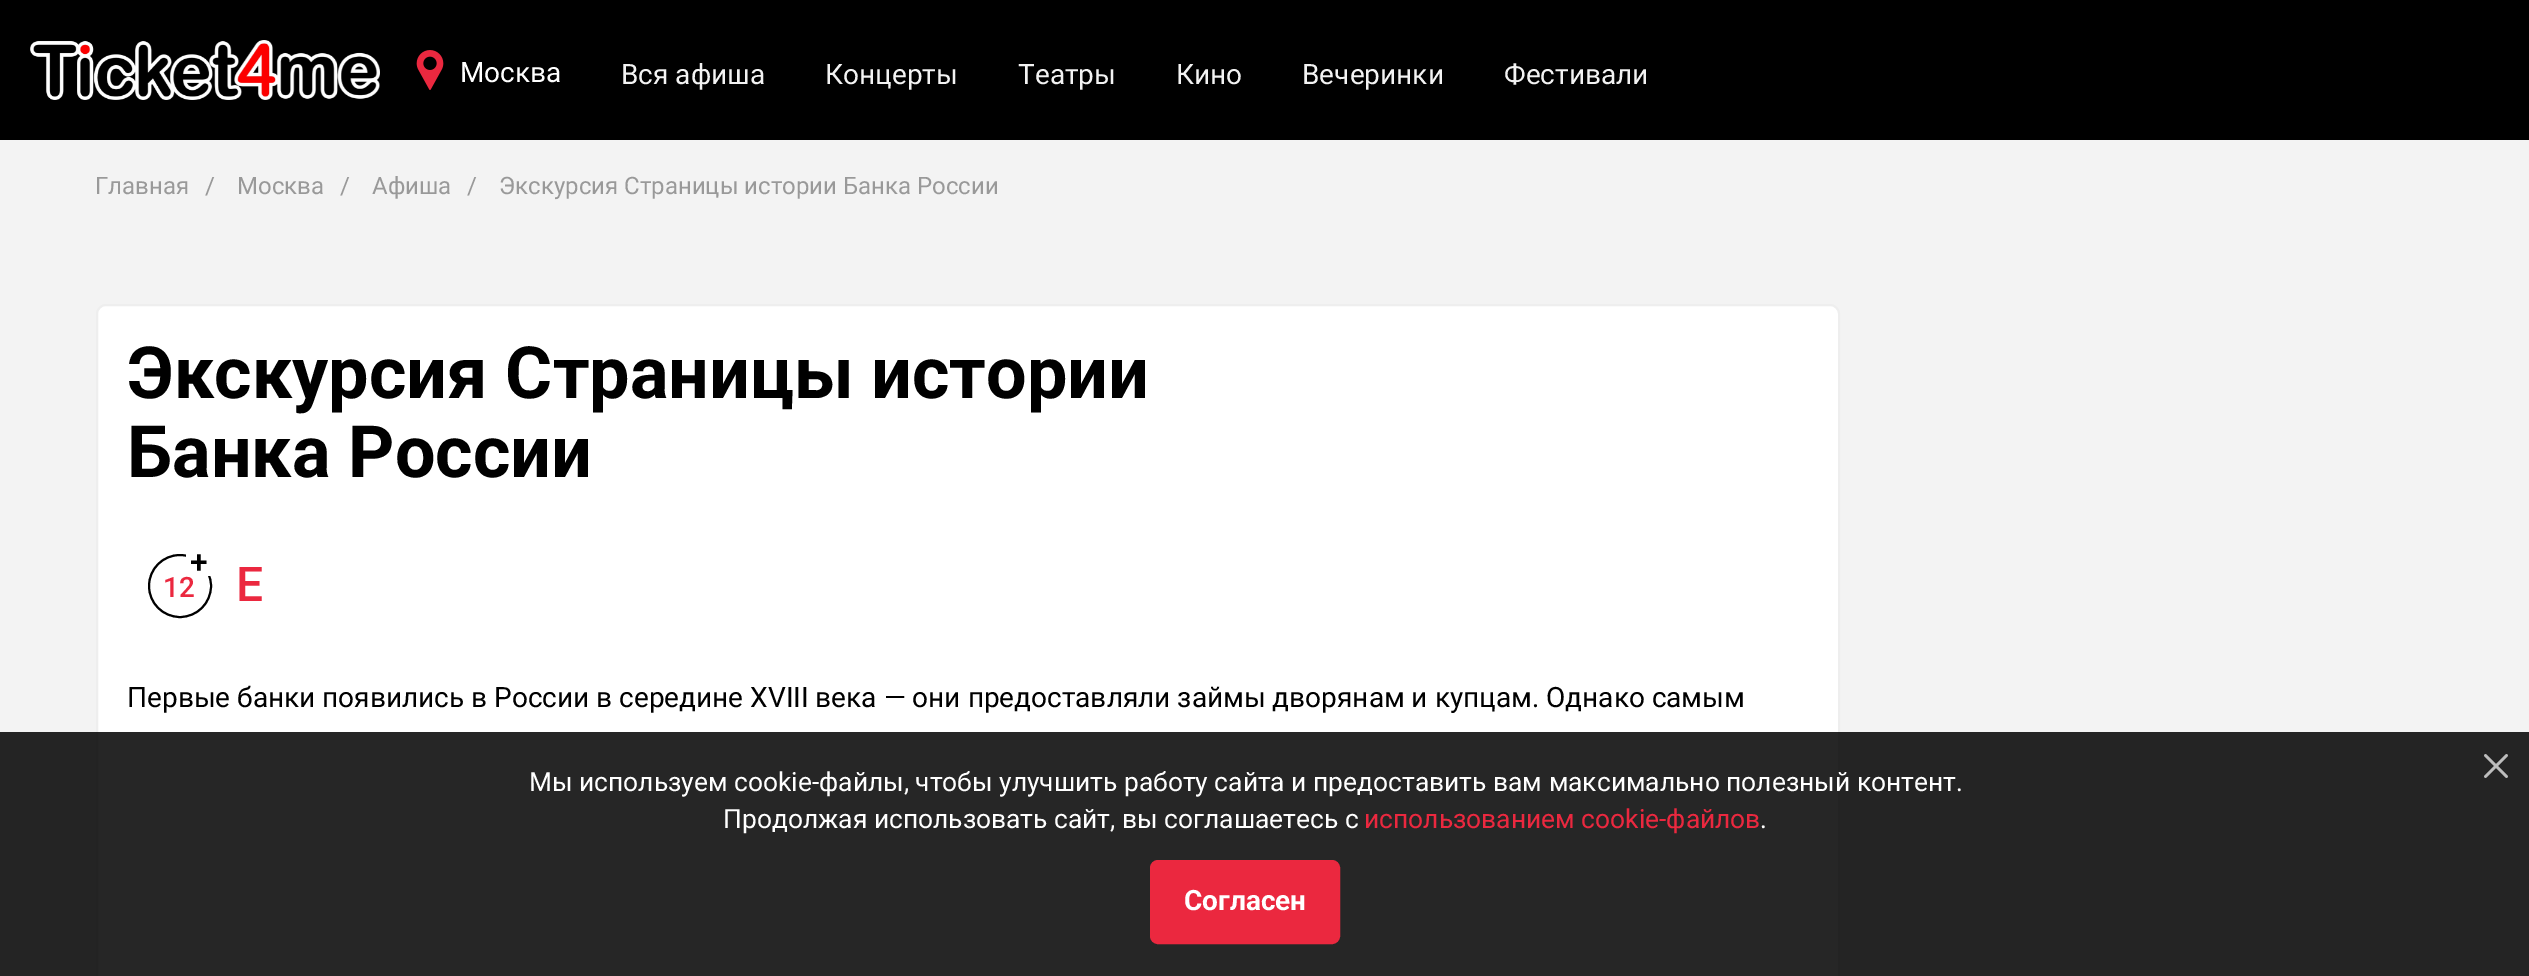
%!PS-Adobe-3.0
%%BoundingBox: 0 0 2529 976
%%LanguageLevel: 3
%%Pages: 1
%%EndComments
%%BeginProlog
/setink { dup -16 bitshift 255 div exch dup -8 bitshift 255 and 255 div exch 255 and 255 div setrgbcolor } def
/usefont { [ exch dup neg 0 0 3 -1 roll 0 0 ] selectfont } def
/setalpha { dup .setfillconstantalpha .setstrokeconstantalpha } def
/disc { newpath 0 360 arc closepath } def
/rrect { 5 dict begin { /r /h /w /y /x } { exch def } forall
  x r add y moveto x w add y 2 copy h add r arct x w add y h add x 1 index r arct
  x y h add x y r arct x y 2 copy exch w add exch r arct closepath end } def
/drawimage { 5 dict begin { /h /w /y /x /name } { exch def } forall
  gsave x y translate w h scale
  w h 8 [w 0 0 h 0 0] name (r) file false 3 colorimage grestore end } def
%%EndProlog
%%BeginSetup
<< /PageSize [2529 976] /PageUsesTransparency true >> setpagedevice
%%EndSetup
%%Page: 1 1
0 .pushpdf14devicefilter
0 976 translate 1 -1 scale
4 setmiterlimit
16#F3F3F3 setink
0 0 2529 976 rectfill
16#000000 setink
0 0 2529 140 rectfill
(img1.raw) 30 40 350 60 drawimage
(img2.raw) 416 50 28 40 drawimage
/Roboto-Regular 28 usefont
16#FFFFFF setink
460 82 moveto (Москва) show
16#F3F3F3 setink
[
    [(Вся афиша) 621 84]
    [(Концерты) 825 84]
    [(Театры) 1018 84]
    [(Кино) 1176 84]
    [(Вечеринки) 1302 84]
    [(Фестивали) 1504 84]
] { aload pop moveto show } forall
/Roboto-Regular 24 usefont
16#999999 setink
[
    [(Главная) 95 194]
    [(/) 205 194]
    [(Москва) 237 194]
    [(/) 340 194]
    [(Афиша) 372 194]
    [(/) 467 194]
    [(Экскурсия Страницы истории Банка России) 499 194]
] { aload pop moveto show } forall
16#FFFFFF setink
97 305 1742 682 9 rrect gsave fill grestore
16#EEEEEE setink
2 setlinewidth
stroke
/Roboto-Bold 72 usefont
16#000000 setink
127 398 moveto (Экскурсия Страницы истории) show
127 477 moveto (Банка России) show
180 586 31 disc stroke
16#FFFFFF setink
186 554 25 22 rectfill
/Roboto-Medium 32 usefont
16#000000 setink
190 573 moveto (+) show
/Roboto-Medium 28 usefont
16#EB283F setink
163 597 moveto (12) show
/Roboto-Medium 48 usefont
236 601 moveto (E) show
/Roboto-Regular 28 usefont
16#000000 setink
127 707 moveto (Первые банки появились в России в середине XVIII века — они предоставляли займы дворянам и купцам. Однако самым) show
0.85 setalpha
0 732 2529 244 rectfill
1 setalpha
(img3.raw) 2484 754 24 24 drawimage
/Roboto-Regular 26.4 usefont
16#FFFFFF setink
529 791 moveto (Мы используем cookie-файлы, чтобы улучшить работу сайта и предоставить вам максимально полезный контент.) show
723 828 moveto (Продолжая использовать сайт, вы соглашаетесь с) show
16#EB283F setink
1364 828 moveto (использованием cookie-файлов) show
16#FFFFFF setink
1760 828 moveto (.) show
16#EB283F setink
1151 861 188 82 7 rrect gsave fill grestore
stroke
/Roboto-Bold 28 usefont
16#FFFFFF setink
1184 910 moveto (Согласен) show
.poppdf14devicefilter showpage
%%EOF
